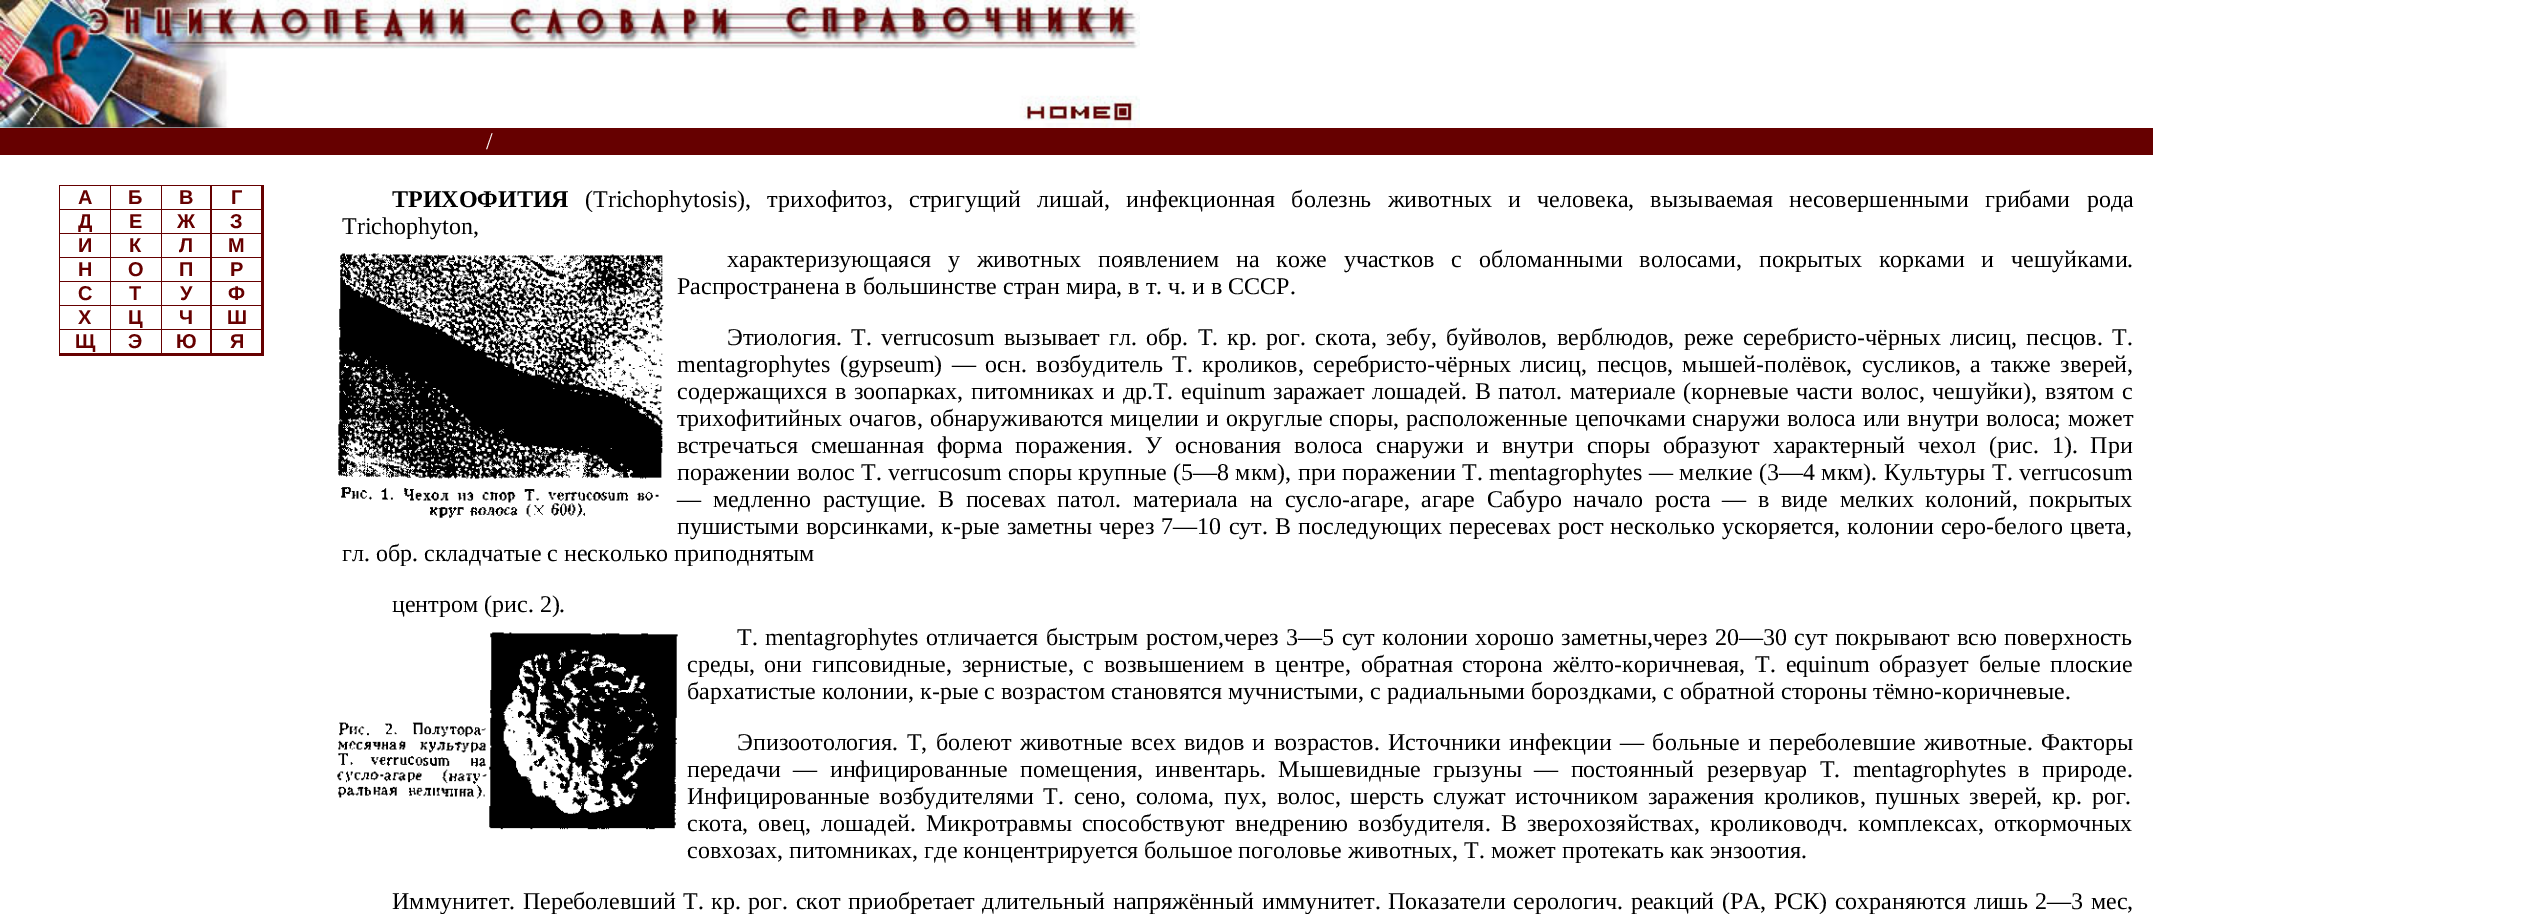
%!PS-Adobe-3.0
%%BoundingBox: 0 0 2532 914
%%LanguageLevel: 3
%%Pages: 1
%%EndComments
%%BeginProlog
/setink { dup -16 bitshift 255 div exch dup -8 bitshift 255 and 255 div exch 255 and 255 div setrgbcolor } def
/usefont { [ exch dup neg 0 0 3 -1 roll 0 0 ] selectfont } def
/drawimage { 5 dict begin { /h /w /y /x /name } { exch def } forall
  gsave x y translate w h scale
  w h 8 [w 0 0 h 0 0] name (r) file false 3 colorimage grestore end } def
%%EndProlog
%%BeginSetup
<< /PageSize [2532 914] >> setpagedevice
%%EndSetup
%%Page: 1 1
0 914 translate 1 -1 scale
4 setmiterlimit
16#FFFFFF setink
0 0 2532 914 rectfill
(img1.raw) 0 0 1140 128 drawimage
16#660000 setink
0 128 2153 27 rectfill
/LiberationSerif-Regular 24 usefont
16#FFFFFF setink
486 149 moveto (/) show
16#660000 setink
59 185 205 171 rectfill
16#FFFFFF setink
60 186 50 23 rectfill
/LiberationSans-Bold 20 usefont
16#660000 setink
78 204 moveto (А) show
16#FFFFFF setink
111 186 50 23 rectfill
16#660000 setink
128 204 moveto (Б) show
16#FFFFFF setink
162 186 48 23 rectfill
16#660000 setink
179 204 moveto (В) show
16#FFFFFF setink
212 186 49 23 rectfill
16#660000 setink
231 204 moveto (Г) show
16#FFFFFF setink
60 210 50 23 rectfill
16#660000 setink
78 228 moveto (Д) show
16#FFFFFF setink
111 210 50 23 rectfill
16#660000 setink
129 228 moveto (Е) show
16#FFFFFF setink
162 210 48 23 rectfill
16#660000 setink
177 228 moveto (Ж) show
16#FFFFFF setink
212 210 49 23 rectfill
16#660000 setink
230 228 moveto (З) show
16#FFFFFF setink
60 234 50 23 rectfill
16#660000 setink
78 252 moveto (И) show
16#FFFFFF setink
111 234 50 23 rectfill
16#660000 setink
129 252 moveto (К) show
16#FFFFFF setink
162 234 48 23 rectfill
16#660000 setink
179 252 moveto (Л) show
16#FFFFFF setink
212 234 49 23 rectfill
16#660000 setink
228 252 moveto (М) show
16#FFFFFF setink
60 258 50 23 rectfill
16#660000 setink
78 276 moveto (Н) show
16#FFFFFF setink
111 258 50 23 rectfill
16#660000 setink
128 276 moveto (О) show
16#FFFFFF setink
162 258 48 23 rectfill
16#660000 setink
179 276 moveto (П) show
16#FFFFFF setink
212 258 49 23 rectfill
16#660000 setink
230 276 moveto (Р) show
16#FFFFFF setink
60 282 50 23 rectfill
16#660000 setink
78 300 moveto (С) show
16#FFFFFF setink
111 282 50 23 rectfill
16#660000 setink
129 300 moveto (Т) show
16#FFFFFF setink
162 282 48 23 rectfill
16#660000 setink
180 300 moveto (У) show
16#FFFFFF setink
212 282 49 23 rectfill
16#660000 setink
228 300 moveto (Ф) show
16#FFFFFF setink
60 306 50 23 rectfill
16#660000 setink
78 324 moveto (Х) show
16#FFFFFF setink
111 306 50 23 rectfill
16#660000 setink
128 324 moveto (Ц) show
16#FFFFFF setink
162 306 48 23 rectfill
16#660000 setink
179 324 moveto (Ч) show
16#FFFFFF setink
212 306 49 23 rectfill
16#660000 setink
227 324 moveto (Ш) show
16#FFFFFF setink
60 330 50 23 rectfill
16#660000 setink
75 348 moveto (Щ) show
16#FFFFFF setink
111 330 50 23 rectfill
16#660000 setink
128 348 moveto (Э) show
16#FFFFFF setink
162 330 48 23 rectfill
16#660000 setink
176 348 moveto (Ю) show
16#FFFFFF setink
212 330 49 23 rectfill
16#660000 setink
230 348 moveto (Я) show
/LiberationSerif-Bold 24 usefont
16#000000 setink
392 207 moveto (ТРИХОФИТИЯ) show
/LiberationSerif-Regular 24 usefont
585 207 moveto 10.25 0 32 (\(Trichophytosis\), трихофитоз, стригущий лишай, инфекционная болезнь животных и человека, вызываемая несовершенными грибами рода) widthshow
342 234 moveto (Trichophyton,) show
(img2.raw) 338 253 326 265 drawimage
727 267 moveto 10.75 0 32 (характеризующаяся у животных появлением на коже участков с обломанными волосами, покрытых корками и чешуйками.) widthshow
677 294 moveto (Распространена в большинстве стран мира, в т. ч. и в СССР.) show
727 345 moveto 3.25 0 32 (Этиология. Т. verrucosum вызывает гл. обр. Т. кр. рог. скота, зебу, буйволов, верблюдов, реже серебристо-чёрных) widthshow
1950 345 moveto 3.25 0 32 (лисиц, песцов. Т.) widthshow
677 372 moveto 3.5 0 32 (mentagrophytes \(gypseum\) — осн. возбудитель Т. кроликов, серебристо-чёрных) widthshow
1520 372 moveto 3.5 0 32 (лисиц, песцов, мышей-полёвок, сусликов, а также зверей,) widthshow
677 399 moveto 1.8 0 32 (содержащихся в зоопарках, питомниках и др.Т. equinum заражает лошадей. В патол. материале \(корневые части волос, чешуйки\), взятом с) widthshow
677 426 moveto 1 0 32 (трихофитийных очагов, обнаруживаются мицелии и округлые споры, расположенные цепочками снаружи волоса или внутри волоса; может) widthshow
677 453 moveto 6.9 0 32 (встречаться смешанная форма поражения. У основания волоса снаружи и внутри споры образуют характерный чехол \(рис. 1\). При) widthshow
677 480 moveto 0.5 0 32 (поражении волос Т. verrucosum споры крупные \(5—8 мкм\), при поражении Т. mentagrophytes — мелкие \(3—4 мкм\). Культуры Т. verrucosum) widthshow
677 507 moveto 5.6 0 32 (— медленно растущие. В посевах патол. материала на сусло-агаре, агаре Сабуро начало роста — в виде мелких колоний, покрытых) widthshow
677 534 moveto 1.25 0 32 (пушистыми ворсинками, к-рые заметны через 7—10 сут. В последующих пересевах рост несколько ускоряется, колонии серо-белого цвета,) widthshow
342 561 moveto (гл. обр. складчатые с несколько приподнятым) show
392 612 moveto (центром \(рис. 2\).) show
(img3.raw) 337 632 341 198 drawimage
737 645 moveto 1.3 0 32 (Т. mentagrophytes отличается быстрым ростом,через 3—5 сут колонии хорошо заметны,через 20—30 сут покрывают всю поверхность) widthshow
687 672 moveto 3.75 0 32 (среды, они гипсовидные, зернистые, с возвышением в центре, обратная сторона жёлто-коричневая, Т. equinum образует белые плоские) widthshow
687 699 moveto (бархатистые колонии, к-рые с возрастом становятся мучнистыми, с радиальными бороздками, с обратной стороны тёмно-коричневые.) show
737 750 moveto 2.5 0 32 (Эпизоотология. Т, болеют животные всех видов и возрастов. Источники инфекции — больные и переболевшие животные. Факторы) widthshow
687 777 moveto 6.4 0 32 (передачи — инфицированные помещения, инвентарь. Мышевидные грызуны — постоянный резервуар Т. mentagrophytes в природе.) widthshow
687 804 moveto 3.75 0 32 (Инфицированные возбудителями Т. сено, солома, пух, волос, шерсть служат источником заражения кроликов, пушных зверей, кр. рог.) widthshow
687 831 moveto 4 0 32 (скота, овец, лошадей. Микротравмы способствуют внедрению возбудителя. В зверохозяйствах, кролиководч. комплексах, откормочных) widthshow
687 858 moveto (совхозах, питомниках, где концентрируется большое поголовье животных, Т. может протекать как энзоотия.) show
392 909 moveto 1.5 0 32 (Иммунитет. Переболевший Т. кр. рог. скот приобретает длительный напряжённый) widthshow
1262 909 moveto 1.5 0 32 (иммунитет. Показатели серологич. реакций \(РА, РСК\) сохраняются лишь 2—3 мес,) widthshow
showpage
%%EOF
